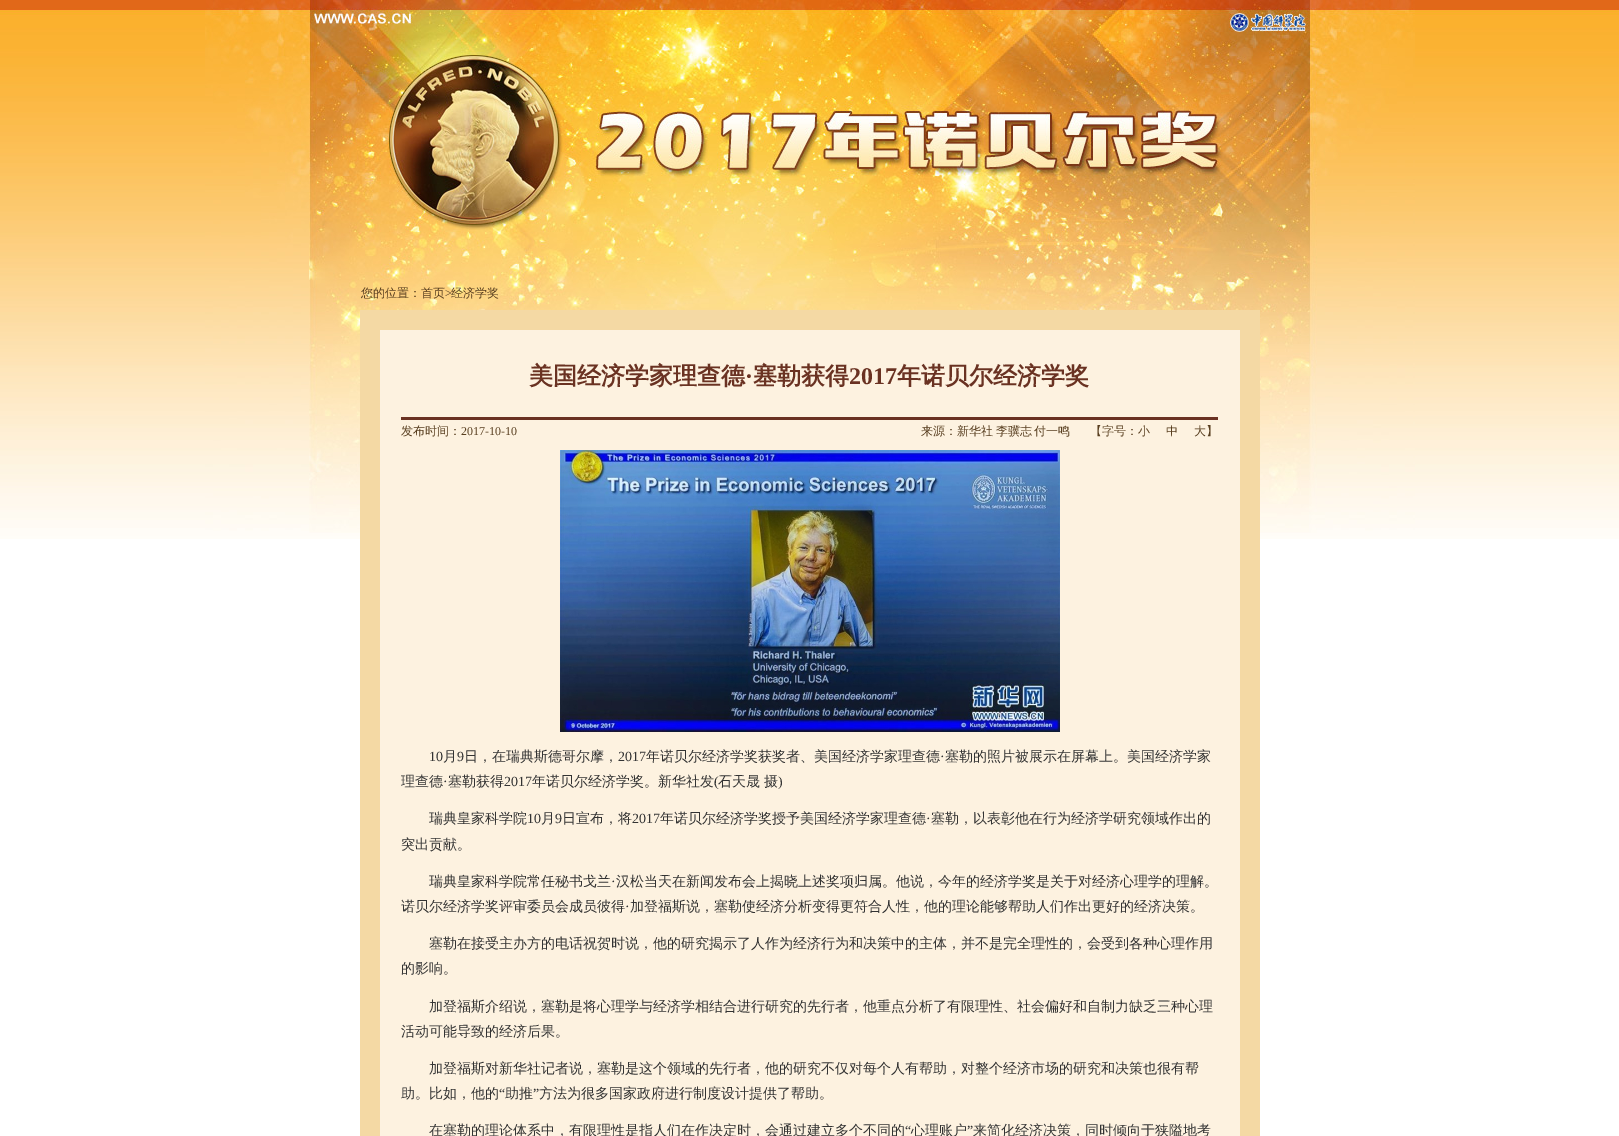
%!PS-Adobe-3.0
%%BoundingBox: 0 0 1619 1136
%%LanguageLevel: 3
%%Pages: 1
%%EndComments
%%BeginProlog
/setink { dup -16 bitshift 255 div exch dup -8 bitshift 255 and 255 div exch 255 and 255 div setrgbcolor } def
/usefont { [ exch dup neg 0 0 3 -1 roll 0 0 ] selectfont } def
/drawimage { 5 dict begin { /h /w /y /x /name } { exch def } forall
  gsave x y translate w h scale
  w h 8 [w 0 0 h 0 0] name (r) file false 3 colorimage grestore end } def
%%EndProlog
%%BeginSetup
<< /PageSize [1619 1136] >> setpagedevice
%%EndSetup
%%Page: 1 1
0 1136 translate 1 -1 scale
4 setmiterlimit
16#FFFFFF setink
0 0 1619 1136 rectfill
(img1.raw) 0 0 1619 539 drawimage
(img2.raw) 205 0 1210 533 drawimage
/WenQuanYiZenHei-Medium 12 usefont
16#583E1F setink
361 297 moveto (您的位置：首页) show
/LiberationSerif-Regular 12 usefont
445 297 moveto (>) show
/WenQuanYiZenHei-Medium 12 usefont
451 297 moveto (经济学奖) show
16#F4D9A4 setink
360 310 900 826 rectfill
16#FDF2E0 setink
380 330 860 806 rectfill
/WenQuanYiZenHei-Bold 24 usefont
16#6A3222 setink
529 384 moveto (美国经济学家理查德) show
/LiberationSerif-Bold 24 usefont
745 384 moveto (·) show
/WenQuanYiZenHei-Bold 24 usefont
753 384 moveto (塞勒获得) show
/LiberationSerif-Bold 24 usefont
849 384 moveto (2017) show
/WenQuanYiZenHei-Bold 24 usefont
897 384 moveto (年诺贝尔经济学奖) show
401 417 817 3 rectfill
/WenQuanYiZenHei-Medium 12 usefont
16#583E1F setink
401 435 moveto (发布时间：) show
/LiberationSerif-Regular 12 usefont
461 435 moveto (2017-10-10) show
/WenQuanYiZenHei-Medium 12 usefont
921 435 moveto -1 0 32 (来源：新华社 李骥志 付一鸣) widthshow
[
    [(【字号：小) 1090 435]
    [(中) 1166 435]
    [(大】) 1194 435]
] { aload pop moveto show } forall
(img3.raw) 560 450 500 282 drawimage
/LiberationSerif-Regular 14 usefont
16#333333 setink
429 761 moveto (10) show
/WenQuanYiZenHei-Medium 14 usefont
443 761 moveto (月) show
/LiberationSerif-Regular 14 usefont
457 761 moveto (9) show
/WenQuanYiZenHei-Medium 14 usefont
464 761 moveto (日，在瑞典斯德哥尔摩，) show
/LiberationSerif-Regular 14 usefont
618 761 moveto (2017) show
/WenQuanYiZenHei-Medium 14 usefont
646 761 moveto (年诺贝尔经济学奖获奖者、美国经济学家理查德) show
/LiberationSerif-Regular 14 usefont
940 761 moveto (·) show
/WenQuanYiZenHei-Medium 14 usefont
945 761 moveto (塞勒的照片被展示在屏幕上。美国经济学家) show
401 786 moveto (理查德) show
/LiberationSerif-Regular 14 usefont
443 786 moveto (·) show
/WenQuanYiZenHei-Medium 14 usefont
448 786 moveto (塞勒获得) show
/LiberationSerif-Regular 14 usefont
504 786 moveto (2017) show
/WenQuanYiZenHei-Medium 14 usefont
532 786 moveto (年诺贝尔经济学奖。新华社发) show
/LiberationSerif-Regular 14 usefont
714 786 moveto (\() show
/WenQuanYiZenHei-Medium 14 usefont
718 786 moveto (石天晟) show
764 786 moveto (摄) show
/LiberationSerif-Regular 14 usefont
778 786 moveto (\)) show
/WenQuanYiZenHei-Medium 14 usefont
429 823 moveto (瑞典皇家科学院) show
/LiberationSerif-Regular 14 usefont
527 823 moveto (10) show
/WenQuanYiZenHei-Medium 14 usefont
541 823 moveto (月) show
/LiberationSerif-Regular 14 usefont
555 823 moveto (9) show
/WenQuanYiZenHei-Medium 14 usefont
562 823 moveto (日宣布，将) show
/LiberationSerif-Regular 14 usefont
632 823 moveto (2017) show
/WenQuanYiZenHei-Medium 14 usefont
660 823 moveto (年诺贝尔经济学奖授予美国经济学家理查德) show
/LiberationSerif-Regular 14 usefont
926 823 moveto (·) show
/WenQuanYiZenHei-Medium 14 usefont
[
    [(塞勒，以表彰他在行为经济学研究领域作出的) 931 823]
    [(突出贡献。) 401 849]
    [(瑞典皇家科学院常任秘书戈兰) 429 886]
] { aload pop moveto show } forall
/LiberationSerif-Regular 14 usefont
611 886 moveto (·) show
/WenQuanYiZenHei-Medium 14 usefont
616 886 moveto (汉松当天在新闻发布会上揭晓上述奖项归属。他说，今年的经济学奖是关于对经济心理学的理解。) show
401 911 moveto (诺贝尔经济学奖评审委员会成员彼得) show
/LiberationSerif-Regular 14 usefont
625 911 moveto (·) show
/WenQuanYiZenHei-Medium 14 usefont
[
    [(加登福斯说，塞勒使经济分析变得更符合人性，他的理论能够帮助人们作出更好的经济决策。) 630 911]
    [(塞勒在接受主办方的电话祝贺时说，他的研究揭示了人作为经济行为和决策中的主体，并不是完全理性的，会受到各种心理作用) 429 948]
    [(的影响。) 401 973]
    [(加登福斯介绍说，塞勒是将心理学与经济学相结合进行研究的先行者，他重点分析了有限理性、社会偏好和自制力缺乏三种心理) 429 1011]
    [(活动可能导致的经济后果。) 401 1036]
    [(加登福斯对新华社记者说，塞勒是这个领域的先行者，他的研究不仅对每个人有帮助，对整个经济市场的研究和决策也很有帮) 429 1073]
    [(助。比如，他的) 401 1098]
] { aload pop moveto show } forall
/LiberationSerif-Regular 14 usefont
499 1098 moveto (“) show
/WenQuanYiZenHei-Medium 14 usefont
505 1098 moveto (助推) show
/LiberationSerif-Regular 14 usefont
533 1098 moveto (”) show
/WenQuanYiZenHei-Medium 14 usefont
539 1098 moveto (方法为很多国家政府进行制度设计提供了帮助。) show
429 1135 moveto (在塞勒的理论体系中，有限理性是指人们在作决定时，会通过建立多个不同的) show
/LiberationSerif-Regular 14 usefont
905 1135 moveto (“) show
/WenQuanYiZenHei-Medium 14 usefont
911 1135 moveto (心理账户) show
/LiberationSerif-Regular 14 usefont
967 1135 moveto (”) show
/WenQuanYiZenHei-Medium 14 usefont
973 1135 moveto (来简化经济决策，同时倾向于狭隘地考) show
showpage
%%EOF
